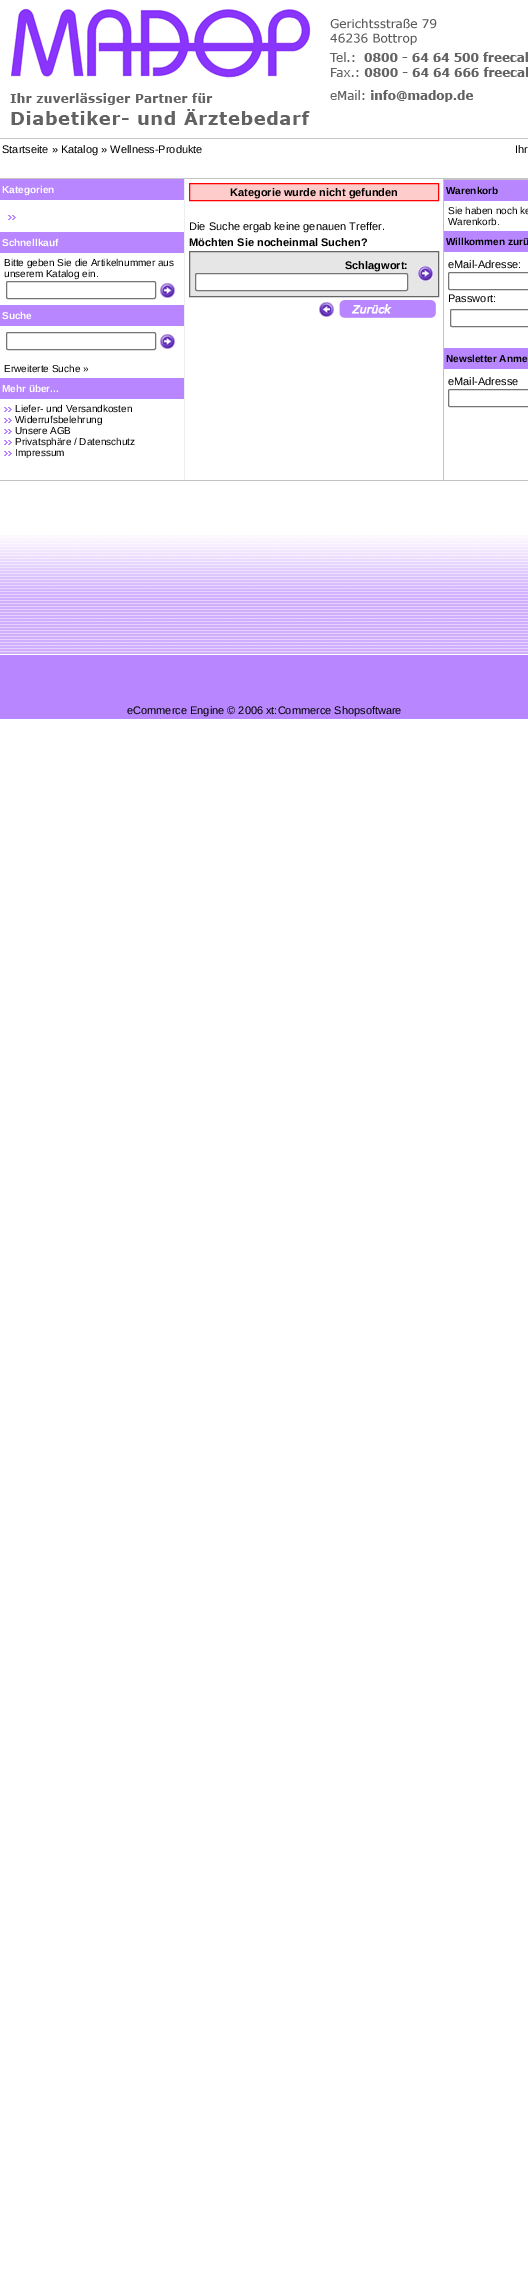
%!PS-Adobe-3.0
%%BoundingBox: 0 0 528 2279
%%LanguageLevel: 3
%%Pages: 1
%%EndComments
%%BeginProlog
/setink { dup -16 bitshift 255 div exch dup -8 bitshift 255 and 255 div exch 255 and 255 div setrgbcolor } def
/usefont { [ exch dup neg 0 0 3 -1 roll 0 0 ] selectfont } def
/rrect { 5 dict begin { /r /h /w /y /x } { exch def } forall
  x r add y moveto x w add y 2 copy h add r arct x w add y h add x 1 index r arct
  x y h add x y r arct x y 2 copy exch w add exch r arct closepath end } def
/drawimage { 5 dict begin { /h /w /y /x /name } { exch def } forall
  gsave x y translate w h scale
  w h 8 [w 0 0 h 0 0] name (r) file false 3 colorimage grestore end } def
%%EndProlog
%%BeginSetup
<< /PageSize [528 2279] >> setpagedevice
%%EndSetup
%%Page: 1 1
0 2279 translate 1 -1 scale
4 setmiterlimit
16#FFFFFF setink
0 0 528 2279 rectfill
(img1.raw) 10 8 301 117 drawimage
(img2.raw) 329 18 199 84 drawimage
16#C5C5C5 setink
0 138 528 1 rectfill
0 178 528 1 rectfill
/LiberationSans-Regular 11 usefont
16#000000 setink
2 153 moveto (Startseite » Katalog » Wellness-Produkte) show
515 153 moveto (Ihr) show
16#EEEEEE setink
184 179 1 301 rectfill
16#B886FE setink
0 179 184 21 rectfill
/LiberationSans-Bold 10 usefont
16#FFFFFF setink
2 193 moveto (Kategorien) show
(img3.raw) 8 215 8 5 drawimage
16#B886FE setink
0 232 184 21 rectfill
16#FFFFFF setink
2 246 moveto (Schnellkauf) show
/LiberationSans-Regular 10 usefont
16#000000 setink
4 266 moveto (Bitte geben Sie die Artikelnummer aus) show
4 277 moveto (unserem Katalog ein.) show
16#767676 setink
6.5 281.5 149 17 1.5 rrect stroke
(img4.raw) 160 283 15 15 drawimage
16#B886FE setink
0 305 184 21 rectfill
/LiberationSans-Bold 10 usefont
16#FFFFFF setink
2 319 moveto (Suche) show
16#767676 setink
6.5 332.5 149 17 1.5 rrect stroke
(img4.raw) 160 334 15 15 drawimage
/LiberationSans-Regular 10 usefont
16#000000 setink
4 372 moveto (Erweiterte Suche ») show
16#B886FE setink
0 378 184 21 rectfill
/LiberationSans-Bold 10 usefont
16#FFFFFF setink
2 392 moveto (Mehr über...) show
(img3.raw) 4 407 8 5 drawimage
/LiberationSans-Regular 10 usefont
16#000000 setink
15 412 moveto (Liefer- und Versandkosten) show
(img3.raw) 4 418 8 5 drawimage
15 423 moveto (Widerrufsbelehrung) show
(img3.raw) 4 429 8 5 drawimage
15 434 moveto (Unsere AGB) show
(img3.raw) 4 440 8 5 drawimage
15 445 moveto (Privatsphäre / Datenschutz) show
(img3.raw) 4 451 8 5 drawimage
15 456 moveto (Impressum) show
16#FFCCCC setink
189.5 183.5 moveto 438.5 183.5 lineto 438.5 200.5 lineto 189.5 200.5 lineto closepath gsave fill grestore
16#FF0000 setink
stroke
/LiberationSans-Bold 11 usefont
16#000000 setink
230 196 moveto (Kategorie wurde nicht gefunden) show
/LiberationSans-Regular 11 usefont
189 230 moveto (Die Suche ergab keine genauen Treffer.) show
/LiberationSans-Bold 11 usefont
189 246 moveto (Möchten Sie nocheinmal Suchen?) show
16#E6E6E6 setink
189.5 251.5 moveto 438.5 251.5 lineto 438.5 296.5 lineto 189.5 296.5 lineto closepath gsave fill grestore
16#666666 setink
stroke
16#000000 setink
345 269 moveto (Schlagwort:) show
16#FFFFFF setink
195.5 273.5 212 17 1.5 rrect gsave fill grestore
16#767676 setink
stroke
(img5.raw) 418 266 15 15 drawimage
(img6.raw) 319 300 117 18 drawimage
[
    [443 179 85 1 16#C3C3C3]
    [443 179 1 301 16#C3C3C3]
    [444 180 84 21 16#B886FE]
] { aload pop setink rectfill } forall
/LiberationSans-Bold 10 usefont
16#000000 setink
446 194 moveto (Warenkorb) show
/LiberationSans-Regular 10 usefont
448 214 moveto (Sie haben noch ke) show
448 225 moveto (Warenkorb.) show
16#B886FE setink
444 231 84 21 rectfill
/LiberationSans-Bold 10 usefont
16#000000 setink
446 245 moveto (Willkommen zurü) show
/LiberationSans-Regular 11 usefont
448 268 moveto (eMail-Adresse:) show
16#767676 setink
448.5 272.5 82 17 1.5 rrect stroke
16#000000 setink
448 302 moveto (Passwort:) show
16#767676 setink
450.5 309.5 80 17 1.5 rrect stroke
16#B886FE setink
444 348 84 21 rectfill
/LiberationSans-Bold 10 usefont
16#000000 setink
446 362 moveto (Newsletter Anme) show
/LiberationSans-Regular 11 usefont
448 385 moveto (eMail-Adresse) show
16#767676 setink
448.5 389.5 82 17 1.5 rrect stroke
16#C3C3C3 setink
0 480 528 1 rectfill
(img7.raw) 0 535 528 167 drawimage
16#B886FE setink
0 702 528 17 rectfill
16#000000 setink
127 714 moveto (eCommerce Engine © 2006 xt:Commerce Shopsoftware) show
showpage
%%EOF
